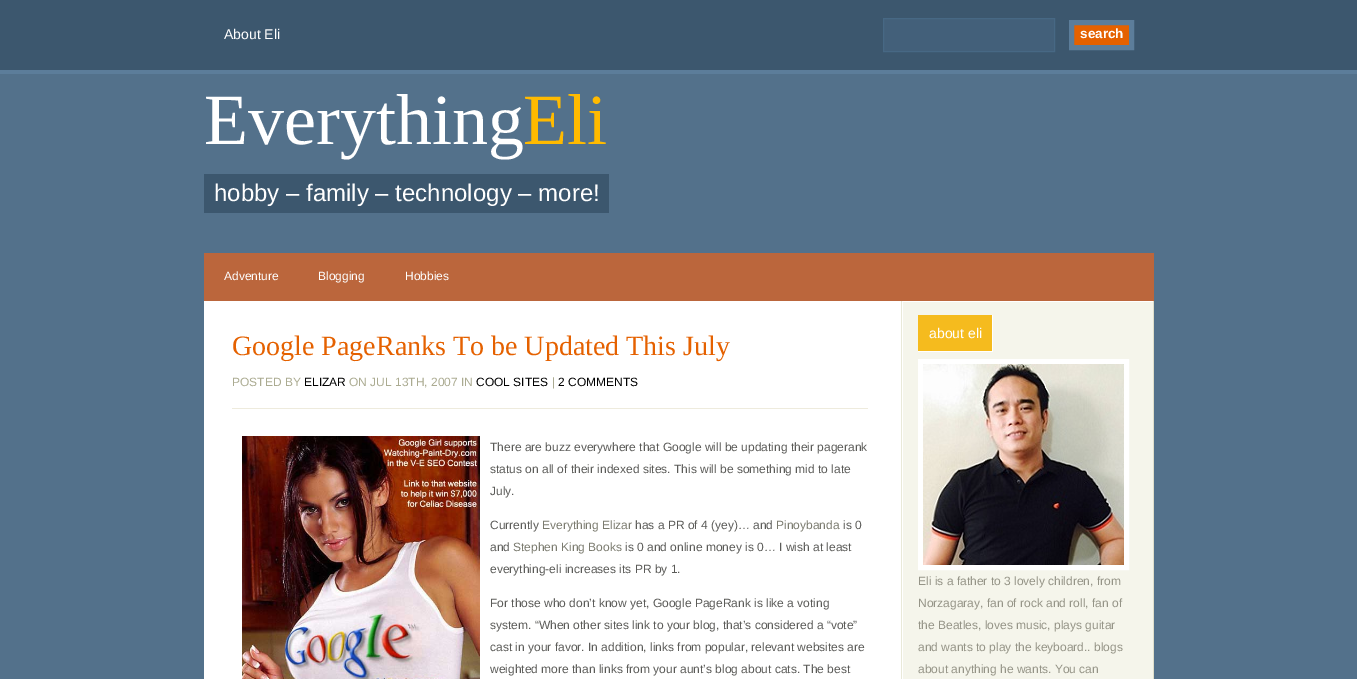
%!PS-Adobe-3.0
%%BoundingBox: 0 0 1357 679
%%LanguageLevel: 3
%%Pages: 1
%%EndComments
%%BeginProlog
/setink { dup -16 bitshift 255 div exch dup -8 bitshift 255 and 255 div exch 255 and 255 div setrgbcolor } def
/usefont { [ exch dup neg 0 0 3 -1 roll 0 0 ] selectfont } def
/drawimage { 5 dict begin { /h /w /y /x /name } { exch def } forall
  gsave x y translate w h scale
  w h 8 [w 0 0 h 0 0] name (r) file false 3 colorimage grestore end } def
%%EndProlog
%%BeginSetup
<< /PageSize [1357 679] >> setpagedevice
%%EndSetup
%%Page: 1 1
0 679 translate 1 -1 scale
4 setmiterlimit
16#53718B setink
0 0 1357 679 rectfill
16#5C7D9A setink
0 70 1357 4 rectfill
16#3C576E setink
0 0 1357 70 rectfill
/LiberationSans-Regular 14 usefont
16#FFFFFF setink
224 39 moveto (About Eli) show
16#43607A setink
883.5 18.5 moveto 1054.5 18.5 lineto 1054.5 51.5 lineto 883.5 51.5 lineto closepath gsave fill grestore
16#476884 setink
stroke
16#E56100 setink
1071.5 22.5 moveto 1131.5 22.5 lineto 1131.5 47.5 lineto 1071.5 47.5 lineto closepath gsave fill grestore
16#5C7D9A setink
5 setlinewidth
stroke
/LiberationSans-Bold 13.5 usefont
16#FFFFFF setink
1080 38 moveto (search) show
/LiberationSerif-Regular 72 usefont
204 144 moveto (Everything) show
16#FFBA00 setink
523 144 moveto (Eli) show
16#3C576E setink
204 174 405 39 rectfill
/LiberationSans-Regular 24 usefont
16#FFFFFF setink
214 201 moveto (hobby – family – technology – more!) show
16#BB663C setink
204 253 950 48 rectfill
/LiberationSans-Regular 12 usefont
16#FFFFFF setink
[
    [(Adventure) 224 280]
    [(Blogging) 318 280]
    [(Hobbies) 405 280]
] { aload pop moveto show } forall
204 301 697 378 rectfill
/LiberationSerif-Regular 28 usefont
16#E56100 setink
232 355 moveto (Google PageRanks To be Updated This July) show
/LiberationSans-Regular 12 usefont
16#ABAB91 setink
232 386 moveto (POSTED BY) show
16#000000 setink
304 386 moveto (ELIZAR) show
16#ABAB91 setink
349 386 moveto (ON JUL 13TH, 2007 IN) show
16#000000 setink
476 386 moveto (COOL SITES) show
16#ABAB91 setink
552 386 moveto (|) show
16#000000 setink
558 386 moveto (2 COMMENTS) show
16#EEEBDD setink
232 408 636 1 rectfill
(img1.raw) 242 436 238 243 drawimage
16#5B5B58 setink
[
    [(There are buzz everywhere that Google will be updating their pagerank) 490 451]
    [(status on all of their indexed sites. This will be something mid to late) 490 473]
    [(July.) 490 495]
    [(Currently) 490 529]
] { aload pop moveto show } forall
16#7B7B6F setink
542 529 moveto (Everything Elizar) show
16#5B5B58 setink
635 529 moveto (has a PR of 4 \(yey\)… and) show
16#7B7B6F setink
776 529 moveto (Pinoybanda) show
16#5B5B58 setink
843 529 moveto (is 0) show
490 551 moveto (and) show
16#7B7B6F setink
513 551 moveto (Stephen King Books) show
16#5B5B58 setink
[
    [(is 0 and online money is 0… I wish at least) 625 551]
    [(everything-eli increases its PR by 1.) 490 573]
    [(For those who don’t know yet, Google PageRank is like a voting) 490 607]
    [(system. “When other sites link to your blog, that’s considered a “vote”) 490 629]
    [(cast in your favor. In addition, links from popular, relevant websites are) 490 651]
    [(weighted more than links from your aunt’s blog about cats. The best) 490 673]
] { aload pop moveto show } forall
[
    [901 301 1 378 16#E9E9D9]
    [1153 301 1 378 16#DEDECA]
    [903 302 250 377 16#F5F5EB]
    [902 301 251 1 16#FFFFFF]
    [902 301 1 378 16#FFFFFF]
    [918 315 74 36 16#F5BB1E]
    [992 315 1 37 16#FFFFFF]
    [918 351 75 1 16#FFFFFF]
] { aload pop setink rectfill } forall
/LiberationSans-Regular 14 usefont
929 338 moveto (about eli) show
920.5 361.5 206 206 rectstroke
(img2.raw) 923 364 201 201 drawimage
/LiberationSans-Regular 12 usefont
16#959487 setink
[
    [(Eli is a father to 3 lovely children, from) 918 585]
    [(Norzagaray, fan of rock and roll, fan of) 918 607]
    [(the Beatles, loves music, plays guitar) 918 629]
    [(and wants to play the keyboard.. blogs) 918 651]
    [(about anything he wants. You can) 918 673]
] { aload pop moveto show } forall
showpage
%%EOF
